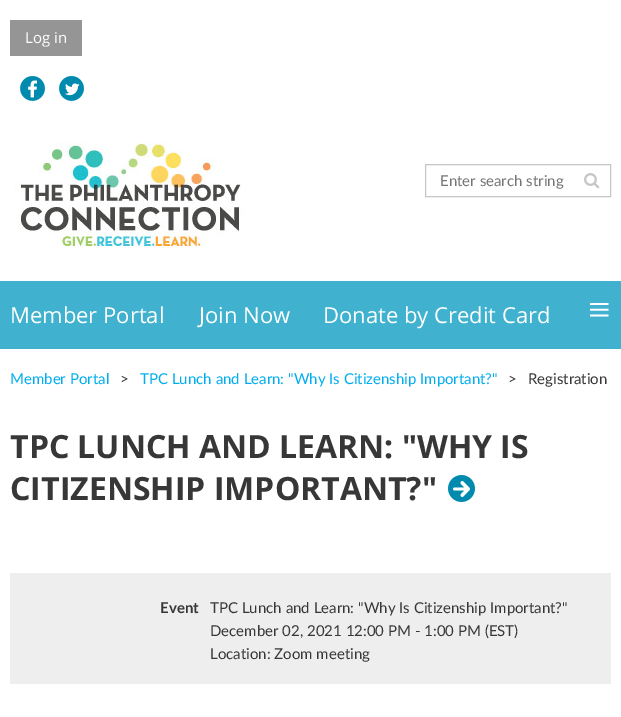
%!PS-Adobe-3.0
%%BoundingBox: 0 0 621 717
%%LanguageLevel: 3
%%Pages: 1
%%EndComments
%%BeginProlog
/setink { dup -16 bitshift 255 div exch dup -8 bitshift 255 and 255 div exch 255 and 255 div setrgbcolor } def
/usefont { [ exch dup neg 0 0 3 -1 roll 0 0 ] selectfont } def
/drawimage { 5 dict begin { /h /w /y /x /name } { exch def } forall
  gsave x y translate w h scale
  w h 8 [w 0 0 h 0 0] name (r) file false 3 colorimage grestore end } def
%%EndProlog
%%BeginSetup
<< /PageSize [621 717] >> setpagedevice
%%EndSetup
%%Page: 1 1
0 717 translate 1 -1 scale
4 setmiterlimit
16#FFFFFF setink
0 0 621 717 rectfill
16#959595 setink
10 20 72 36 rectfill
/OpenSans-Regular 15 usefont
16#FFFFFF setink
25 43 moveto (Log in) show
(img1.raw) 20 76 25 25 drawimage
(img2.raw) 59 76 25 25 drawimage
(img3.raw) 14 142 232 104 drawimage
16#C6C6C6 setink
425.5 164.5 185 32 rectstroke
/Lato-Regular 15 usefont
16#757575 setink
440 186 moveto (Enter search string) show
(img4.raw) 584 173 16 16 drawimage
16#40B2CF setink
0 281 621 68 rectfill
/OpenSans-Regular 22 usefont
16#FFFFFF setink
[
    [(Member Portal) 10 323]
    [(Join Now) 199 323]
    [(Donate by Credit Card) 323 323]
] { aload pop moveto show } forall
/LiberationSerif-Regular 40 usefont
588 323 moveto (≡) show
/Lato-Regular 15 usefont
16#00AEEF setink
10 384 moveto (Member Portal) show
16#373737 setink
120 384 moveto (>) show
16#00AEEF setink
140 384 moveto (TPC Lunch and Learn: "Why Is Citizenship Important?") show
16#373737 setink
508 384 moveto (>) show
528 384 moveto (Registration) show
/OpenSans-Bold 32 usefont
10 458 moveto (TPC LUNCH AND LEARN: "WHY IS) show
10 500 moveto (CITIZENSHIP IMPORTANT?") show
(img5.raw) 448 475 27 27 drawimage
16#EEEEEE setink
10 573 601 111 rectfill
/Lato-Bold 15 usefont
16#373737 setink
160 613 moveto (Event) show
/Lato-Regular 15 usefont
[
    [(TPC Lunch and Learn: "Why Is Citizenship Important?") 210 613]
    [(December 02, 2021 12:00 PM - 1:00 PM \(EST\)) 210 636]
    [(Location: Zoom meeting) 210 659]
] { aload pop moveto show } forall
showpage
%%EOF
